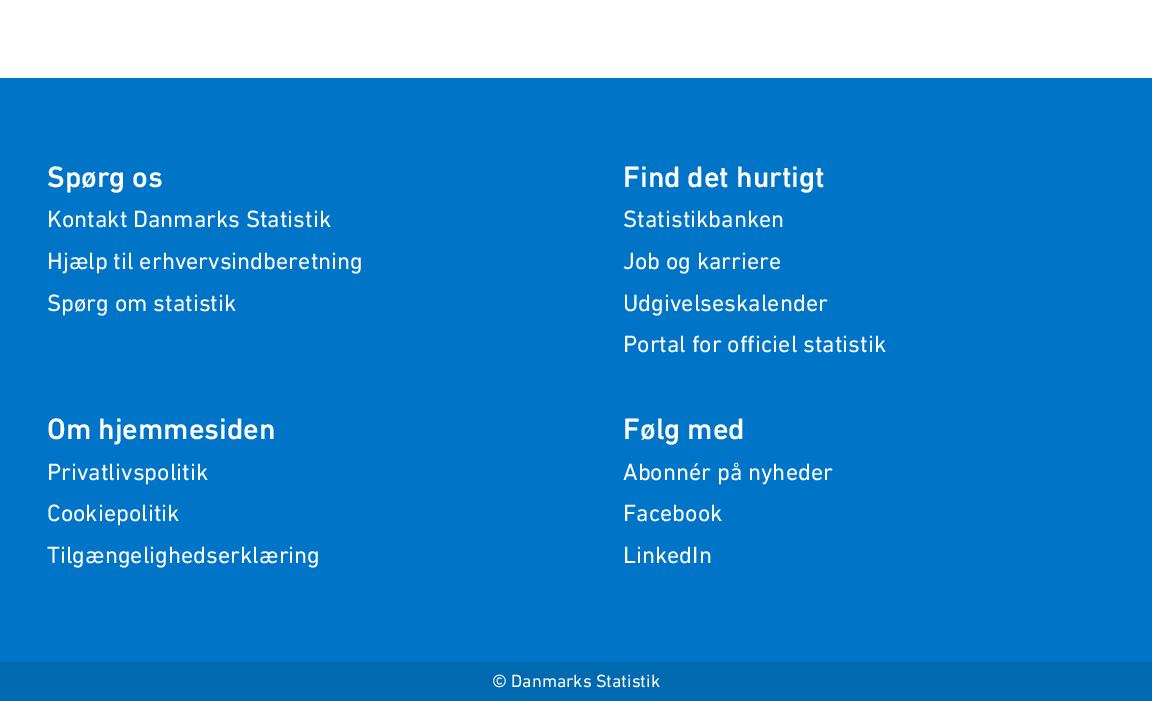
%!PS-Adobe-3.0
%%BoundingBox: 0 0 1152 701
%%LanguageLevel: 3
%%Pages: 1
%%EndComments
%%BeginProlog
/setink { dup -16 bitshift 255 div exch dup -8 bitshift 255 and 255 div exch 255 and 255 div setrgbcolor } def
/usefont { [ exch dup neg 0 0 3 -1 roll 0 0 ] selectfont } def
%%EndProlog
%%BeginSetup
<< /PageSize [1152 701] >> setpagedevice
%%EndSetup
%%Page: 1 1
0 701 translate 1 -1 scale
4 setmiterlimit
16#FFFFFF setink
0 0 1152 701 rectfill
16#0074C6 setink
0 78 1152 584 rectfill
/DINNext-Medium 30 usefont
16#FFFFFF setink
47 187 moveto (Spørg os) show
/DINNext-Regular 24 usefont
[
    [(Kontakt Danmarks Statistik) 47 227]
    [(Hjælp til erhvervsindberetning) 47 269]
    [(Spørg om statistik) 47 311]
] { aload pop moveto show } forall
/DINNext-Medium 30 usefont
623 187 moveto (Find det hurtigt) show
/DINNext-Regular 24 usefont
[
    [(Statistikbanken) 623 227]
    [(Job og karriere) 623 269]
    [(Udgivelseskalender) 623 311]
    [(Portal for officiel statistik) 623 352]
] { aload pop moveto show } forall
/DINNext-Medium 30 usefont
47 439 moveto (Om hjemmesiden) show
/DINNext-Regular 24 usefont
[
    [(Privatlivspolitik) 47 480]
    [(Cookiepolitik) 47 521]
    [(Tilgængelighedserklæring) 47 563]
] { aload pop moveto show } forall
/DINNext-Medium 30 usefont
623 439 moveto (Følg med) show
/DINNext-Regular 24 usefont
[
    [(Abonnér på nyheder) 623 480]
    [(Facebook) 623 521]
    [(LinkedIn) 623 563]
] { aload pop moveto show } forall
16#0169B0 setink
0 662 1152 39 rectfill
/DINNext-Regular 18 usefont
16#FFFFFF setink
492 687 moveto (© Danmarks Statistik) show
showpage
%%EOF
